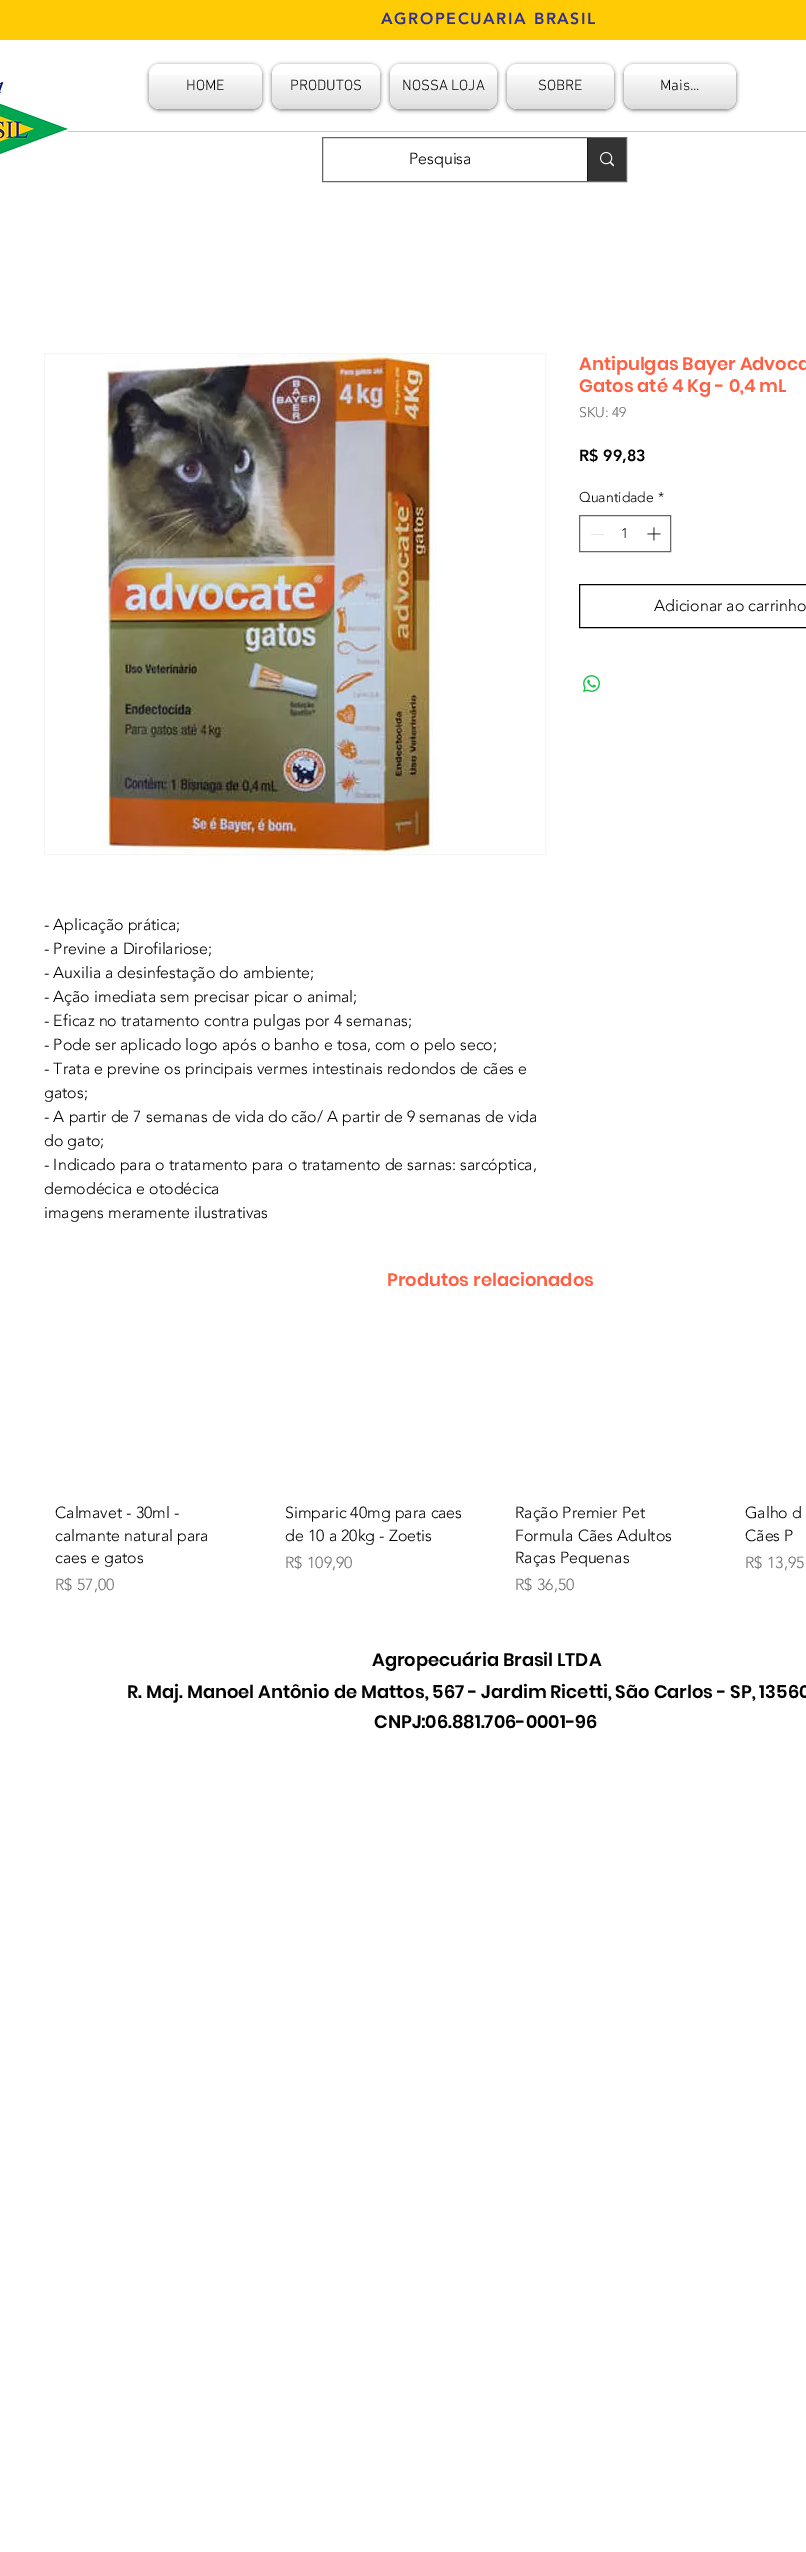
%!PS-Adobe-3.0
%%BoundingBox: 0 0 806 2552
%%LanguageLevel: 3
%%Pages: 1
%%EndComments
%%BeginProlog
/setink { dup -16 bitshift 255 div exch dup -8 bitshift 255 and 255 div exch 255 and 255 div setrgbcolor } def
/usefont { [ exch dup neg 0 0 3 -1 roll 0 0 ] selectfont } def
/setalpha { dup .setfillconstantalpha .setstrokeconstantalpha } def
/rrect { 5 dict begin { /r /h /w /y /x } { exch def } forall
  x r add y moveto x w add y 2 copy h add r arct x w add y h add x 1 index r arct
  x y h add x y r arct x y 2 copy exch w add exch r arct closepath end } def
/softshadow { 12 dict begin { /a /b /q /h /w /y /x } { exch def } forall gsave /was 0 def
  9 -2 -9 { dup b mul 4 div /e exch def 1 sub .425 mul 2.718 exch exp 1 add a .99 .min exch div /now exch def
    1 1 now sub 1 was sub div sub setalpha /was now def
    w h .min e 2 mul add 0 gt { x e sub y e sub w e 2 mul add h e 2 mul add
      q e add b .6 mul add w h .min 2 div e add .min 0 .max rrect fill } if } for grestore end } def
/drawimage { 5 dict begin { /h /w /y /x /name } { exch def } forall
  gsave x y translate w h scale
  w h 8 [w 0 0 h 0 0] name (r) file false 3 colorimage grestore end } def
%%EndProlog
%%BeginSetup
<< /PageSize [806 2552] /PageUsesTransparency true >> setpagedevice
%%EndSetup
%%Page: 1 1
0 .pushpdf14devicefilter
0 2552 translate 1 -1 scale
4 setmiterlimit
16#FFFFFF setink
0 0 806 2552 rectfill
16#FFCB05 setink
0 0 806 40 rectfill
/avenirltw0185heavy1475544-Black 16 usefont
16#2E3192 setink
381 24 moveto 1.6 0 (AGROPECUARIA BRASIL) ashow
(img1.raw) 0 82 68 72 drawimage
16#000000 setink
149 65 113 45 10 2 0.6 softshadow
16#FFFFFF setink
149 64 113 45 10 rrect fill
(img2.raw) 149 75 113 34 drawimage
/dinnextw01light-Light 15 usefont
16#000000 setink
186 90 moveto (HOME) show
272 65 108 45 10 2 0.6 softshadow
16#FFFFFF setink
272 64 108 45 10 rrect fill
(img3.raw) 272 75 108 34 drawimage
16#000000 setink
290 90 moveto (PRODUTOS) show
390 65 107 45 10 2 0.6 softshadow
16#FFFFFF setink
390 64 107 45 10 rrect fill
(img4.raw) 390 75 107 34 drawimage
16#000000 setink
402 90 moveto (NOSSA LOJA) show
507 65 107 45 10 2 0.6 softshadow
16#FFFFFF setink
507 64 107 45 10 rrect fill
(img5.raw) 507 75 107 34 drawimage
16#000000 setink
538 90 moveto (SOBRE) show
624 65 112 45 10 2 0.6 softshadow
16#FFFFFF setink
624 64 112 45 10 rrect fill
(img6.raw) 624 75 112 34 drawimage
16#000000 setink
660 90 moveto (Mais...) show
16#C7C7C7 setink
68 131 738 1 rectfill
16#666666 setink
322.5 137.5 304 44 rectstroke
/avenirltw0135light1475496-Light 16 usefont
16#000000 setink
409 164 moveto (Pesquisa) show
16#333333 setink
588 138 38 43 rectfill
16#141414 setink
587 138 1 43 rectfill
(img7.raw) 600 152 14 15 drawimage
/Poppins-SemiBold 18 usefont
16#FF5F42 setink
579 370 moveto (Antipulgas Bayer Advoca) show
579 392 moveto (Gatos até 4 Kg - 0,4 mL) show
/avenirltw0135light1475496-Light 14 usefont
16#6B6B6A setink
579 417 moveto (SKU: 49) show
/avenirltw0185heavy1475544-Black 16 usefont
16#000000 setink
579 461 moveto (R$ 99,83) show
/avenirltw0135light1475496-Light 14 usefont
579 502 moveto (Quantidade) show
658 502 moveto (*) show
16#666666 setink
579.5 515.5 91 36 rectstroke
16#E3E3E3 setink
591 534 13 1 rectfill
16#000000 setink
621 538 moveto (1) show
(img8.raw) 647 527 14 14 drawimage
579.5 584.5 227 43 rectstroke
/avenirltw0135light1475496-Light 16 usefont
654 611 moveto (Adicionar ao carrinho) show
(img9.raw) 583 675 17 17 drawimage
16#F6F6F6 setink
44.5 353.5 501 501 rectstroke
(img10.raw) 104 354 333 500 drawimage
16#000000 setink
[
    [(- Aplicação prática;) 44 930]
    [(- Previne a Dirofilariose;) 44 954]
    [(- Auxilia a desinfestação do ambiente;) 44 978]
    [(- Ação imediata sem precisar picar o animal;) 44 1002]
    [(- Eficaz no tratamento contra pulgas por 4 semanas;) 44 1026]
    [(- Pode ser aplicado logo após o banho e tosa, com o pelo seco;) 44 1050]
    [(- Trata e previne os principais vermes intestinais redondos de cães e) 44 1074]
    [(gatos;) 44 1098]
    [(- A partir de 7 semanas de vida do cão/ A partir de 9 semanas de vida) 44 1122]
    [(do gato;) 44 1146]
    [(- Indicado para o tratamento para o tratamento de sarnas: sarcóptica,) 44 1170]
    [(demodécica e otodécica) 44 1194]
    [(imagens meramente ilustrativas) 44 1218]
] { aload pop moveto show } forall
/Poppins-SemiBold 18 usefont
16#FF5F42 setink
387 1286 moveto (Produtos relacionados) show
/avenirltw0135light1475496-Light 16 usefont
16#000000 setink
[
    [(Calmavet - 30ml -) 55 1518]
    [(calmante natural para) 55 1541]
    [(caes e gatos) 55 1563]
] { aload pop moveto show } forall
16#6B6B6A setink
55 1590 moveto (R$ 57,00) show
16#000000 setink
285 1518 moveto (Simparic 40mg para caes) show
285 1541 moveto (de 10 a 20kg - Zoetis) show
16#6B6B6A setink
285 1568 moveto (R$ 109,90) show
16#000000 setink
[
    [(Ração Premier Pet) 515 1518]
    [(Formula Cães Adultos) 515 1541]
    [(Raças Pequenas) 515 1563]
] { aload pop moveto show } forall
16#6B6B6A setink
515 1590 moveto (R$ 36,50) show
16#000000 setink
745 1518 moveto (Galho d) show
745 1541 moveto (Cães P) show
16#6B6B6A setink
745 1568 moveto (R$ 13,95) show
/Poppins-SemiBold 18 usefont
16#000000 setink
[
    [(Agropecuária Brasil LTDA) 372 1666]
    [(R. Maj. Manoel Antônio de Mattos, 567 - Jardim Ricetti, São Carlos - SP, 13560) 127 1698]
    [(CNPJ:06.881.706-0001-96) 374 1728]
] { aload pop moveto show } forall
.poppdf14devicefilter showpage
%%EOF
